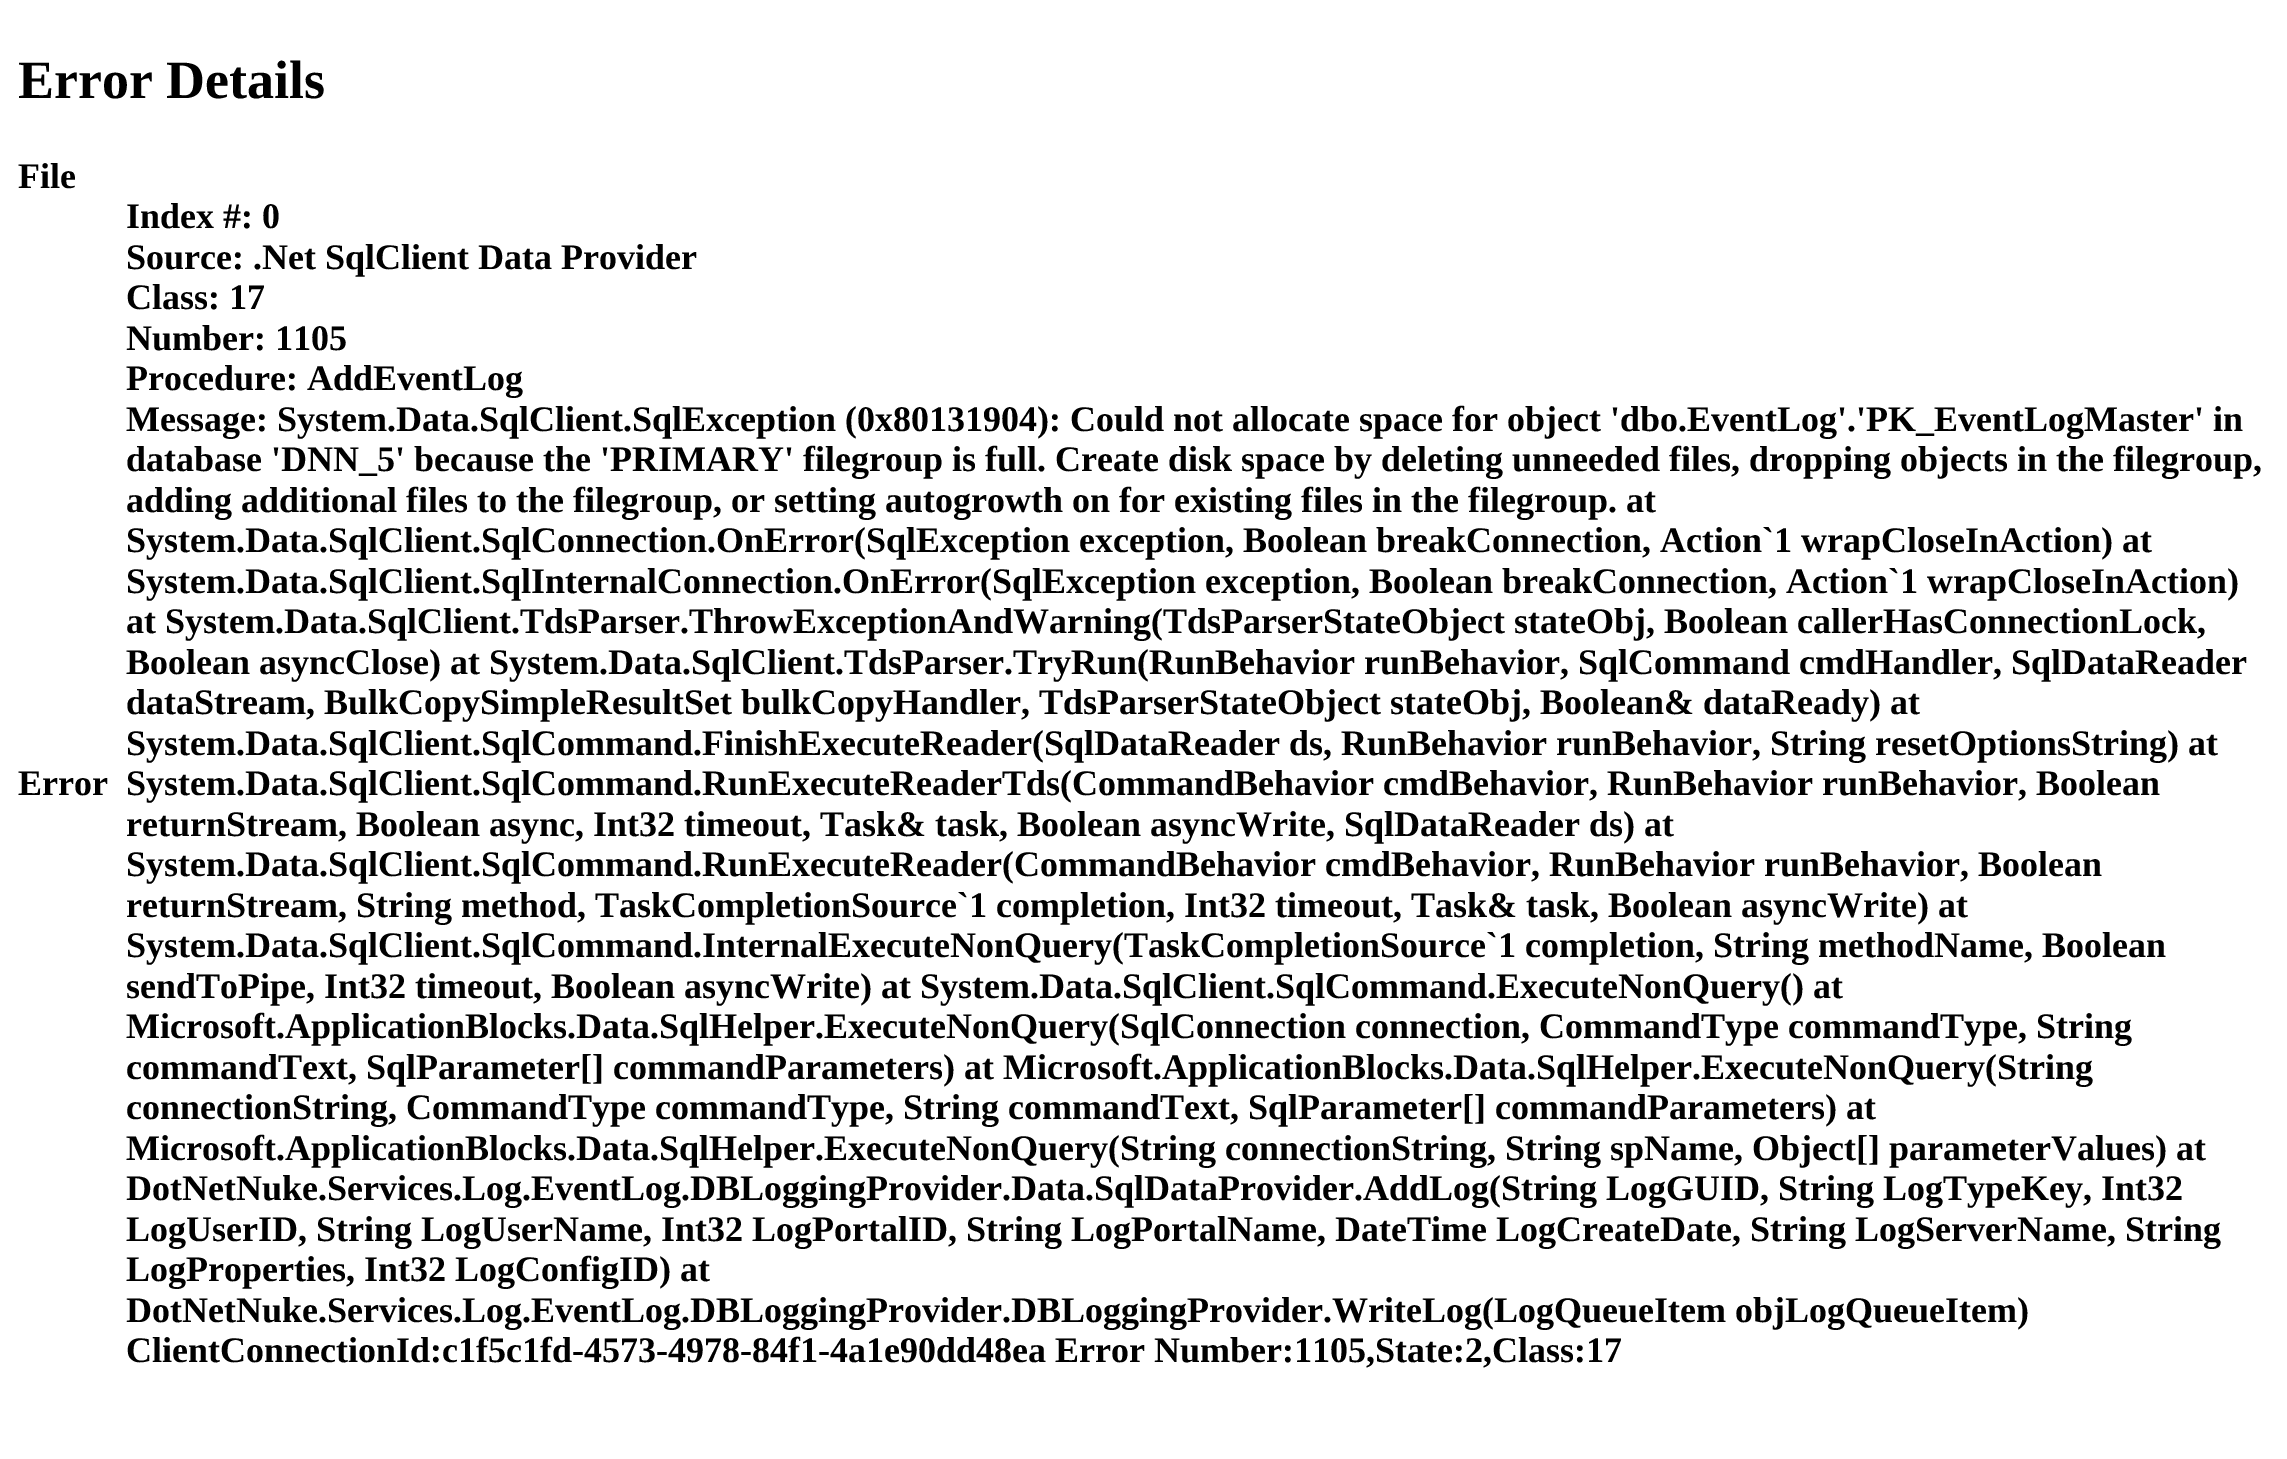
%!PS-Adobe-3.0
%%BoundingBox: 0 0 2287 1459
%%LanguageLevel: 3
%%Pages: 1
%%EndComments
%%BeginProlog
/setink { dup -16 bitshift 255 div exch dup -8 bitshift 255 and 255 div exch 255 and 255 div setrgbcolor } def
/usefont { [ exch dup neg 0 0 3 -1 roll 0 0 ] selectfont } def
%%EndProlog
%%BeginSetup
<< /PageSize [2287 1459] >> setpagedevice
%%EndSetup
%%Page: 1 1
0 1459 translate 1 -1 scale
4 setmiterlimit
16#FFFFFF setink
0 0 2287 1459 rectfill
/LiberationSerif-Bold 54 usefont
16#000000 setink
18 98 moveto (Error Details) show
/LiberationSerif-Bold 36 usefont
[
    [(File) 18 188]
    [(Error) 18 795]
    [(Index #: 0) 126 228]
    [(Source: .Net SqlClient Data Provider) 126 269]
    [(Class: 17) 126 309]
    [(Number: 1105) 126 350]
    [(Procedure: AddEventLog) 126 390]
    [(Message: System.Data.SqlClient.SqlException \(0x80131904\): Could not allocate space for object 'dbo.EventLog'.'PK_EventLogMaster' in) 126 431]
    [(database 'DNN_5' because the 'PRIMARY' filegroup is full. Create disk space by deleting unneeded files, dropping objects in the filegroup,) 126 471]
    [(adding additional files to the filegroup, or setting autogrowth on for existing files in the filegroup. at) 126 512]
    [(System.Data.SqlClient.SqlConnection.OnError\(SqlException exception, Boolean breakConnection, Action`1 wrapCloseInAction\) at) 126 552]
    [(System.Data.SqlClient.SqlInternalConnection.OnError\(SqlException exception, Boolean breakConnection, Action`1 wrapCloseInAction\)) 126 593]
    [(at System.Data.SqlClient.TdsParser.ThrowExceptionAndWarning\(TdsParserStateObject stateObj, Boolean callerHasConnectionLock,) 126 633]
    [(Boolean asyncClose\) at System.Data.SqlClient.TdsParser.TryRun\(RunBehavior runBehavior, SqlCommand cmdHandler, SqlDataReader) 126 674]
    [(dataStream, BulkCopySimpleResultSet bulkCopyHandler, TdsParserStateObject stateObj, Boolean& dataReady\) at) 126 714]
    [(System.Data.SqlClient.SqlCommand.FinishExecuteReader\(SqlDataReader ds, RunBehavior runBehavior, String resetOptionsString\) at) 126 755]
    [(System.Data.SqlClient.SqlCommand.RunExecuteReaderTds\(CommandBehavior cmdBehavior, RunBehavior runBehavior, Boolean) 126 795]
    [(returnStream, Boolean async, Int32 timeout, Task& task, Boolean asyncWrite, SqlDataReader ds\) at) 126 836]
    [(System.Data.SqlClient.SqlCommand.RunExecuteReader\(CommandBehavior cmdBehavior, RunBehavior runBehavior, Boolean) 126 876]
    [(returnStream, String method, TaskCompletionSource`1 completion, Int32 timeout, Task& task, Boolean asyncWrite\) at) 126 917]
    [(System.Data.SqlClient.SqlCommand.InternalExecuteNonQuery\(TaskCompletionSource`1 completion, String methodName, Boolean) 126 957]
    [(sendToPipe, Int32 timeout, Boolean asyncWrite\) at System.Data.SqlClient.SqlCommand.ExecuteNonQuery\(\) at) 126 998]
    [(Microsoft.ApplicationBlocks.Data.SqlHelper.ExecuteNonQuery\(SqlConnection connection, CommandType commandType, String) 126 1038]
    [(commandText, SqlParameter[] commandParameters\) at Microsoft.ApplicationBlocks.Data.SqlHelper.ExecuteNonQuery\(String) 126 1079]
    [(connectionString, CommandType commandType, String commandText, SqlParameter[] commandParameters\) at) 126 1119]
    [(Microsoft.ApplicationBlocks.Data.SqlHelper.ExecuteNonQuery\(String connectionString, String spName, Object[] parameterValues\) at) 126 1160]
    [(DotNetNuke.Services.Log.EventLog.DBLoggingProvider.Data.SqlDataProvider.AddLog\(String LogGUID, String LogTypeKey, Int32) 126 1200]
    [(LogUserID, String LogUserName, Int32 LogPortalID, String LogPortalName, DateTime LogCreateDate, String LogServerName, String) 126 1241]
    [(LogProperties, Int32 LogConfigID\) at) 126 1281]
    [(DotNetNuke.Services.Log.EventLog.DBLoggingProvider.DBLoggingProvider.WriteLog\(LogQueueItem objLogQueueItem\)) 126 1322]
    [(ClientConnectionId:c1f5c1fd-4573-4978-84f1-4a1e90dd48ea Error Number:1105,State:2,Class:17) 126 1362]
] { aload pop moveto show } forall
showpage
%%EOF
